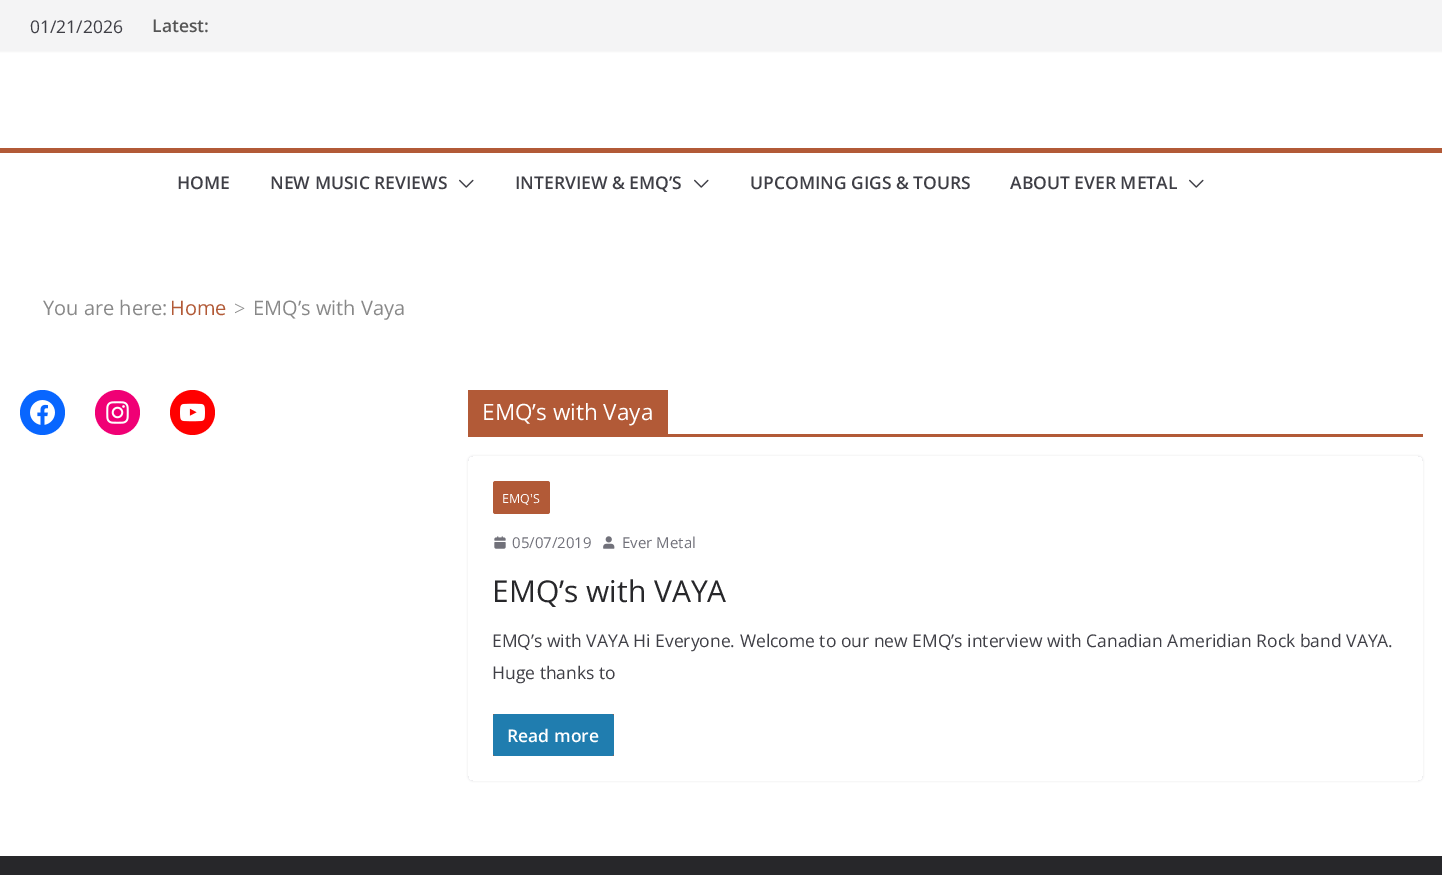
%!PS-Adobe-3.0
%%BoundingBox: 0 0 1442 875
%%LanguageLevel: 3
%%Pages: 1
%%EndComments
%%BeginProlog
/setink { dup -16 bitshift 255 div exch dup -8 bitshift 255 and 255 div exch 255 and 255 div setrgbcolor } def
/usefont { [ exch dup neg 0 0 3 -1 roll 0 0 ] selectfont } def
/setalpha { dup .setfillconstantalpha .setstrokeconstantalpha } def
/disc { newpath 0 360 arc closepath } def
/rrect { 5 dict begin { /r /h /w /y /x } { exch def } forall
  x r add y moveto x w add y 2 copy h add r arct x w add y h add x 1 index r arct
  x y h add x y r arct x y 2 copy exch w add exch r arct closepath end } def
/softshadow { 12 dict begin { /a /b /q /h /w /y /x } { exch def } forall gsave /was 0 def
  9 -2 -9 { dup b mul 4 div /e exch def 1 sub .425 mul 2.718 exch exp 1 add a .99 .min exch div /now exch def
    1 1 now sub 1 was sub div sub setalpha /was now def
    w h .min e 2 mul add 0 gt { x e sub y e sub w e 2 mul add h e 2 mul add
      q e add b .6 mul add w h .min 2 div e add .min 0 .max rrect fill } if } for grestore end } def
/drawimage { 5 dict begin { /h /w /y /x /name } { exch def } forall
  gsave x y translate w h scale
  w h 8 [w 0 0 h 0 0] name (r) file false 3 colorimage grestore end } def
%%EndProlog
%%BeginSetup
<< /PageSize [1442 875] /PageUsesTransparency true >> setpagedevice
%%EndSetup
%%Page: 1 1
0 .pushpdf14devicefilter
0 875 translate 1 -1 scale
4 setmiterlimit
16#FFFFFF setink
0 0 1442 875 rectfill
16#000000 setink
0 0 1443 51 0 1 0.1 softshadow
16#F4F4F5 setink
0 0 1442 51 rectfill
/OpenSans-Regular 17.5 usefont
16#3F3F46 setink
30 33 moveto (01/21/2026) show
/OpenSans-SemiBold 17.5 usefont
16#555555 setink
152 32 moveto (Latest:) show
16#B25A37 setink
0 148 1442 5 rectfill
16#3F3F46 setink
177 189 moveto (HOME) show
270 189 moveto (NEW MUSIC REVIEWS) show
(img1.raw) 459 179 15 9 drawimage
515 189 moveto (INTERVIEW & EMQ’S) show
(img1.raw) 694 179 15 9 drawimage
750 189 moveto (UPCOMING GIGS & TOURS) show
1010 189 moveto (ABOUT EVER METAL) show
(img1.raw) 1189 179 15 9 drawimage
/OpenSans-Regular 20 usefont
16#888888 setink
43 315 moveto (You are here:) show
16#B25A37 setink
170 315 moveto (Home) show
/LiberationSerif-Regular 20 usefont
16#888888 setink
234 315 moveto (>) show
/OpenSans-Regular 20 usefont
253 315 moveto (EMQ’s with Vaya) show
16#0866FF setink
42.5 412.5 22.5 disc fill
(img2.raw) 30 400 25 25 drawimage
16#F00075 setink
117.5 412.5 22.5 disc fill
(img3.raw) 106 401 23 23 drawimage
16#FF0000 setink
192.5 412.5 22.5 disc fill
(img4.raw) 180 403 25 19 drawimage
16#B25A37 setink
468 434 955 3 rectfill
468 390 200 44 rectfill
/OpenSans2-Regular 22.5 usefont
16#FFFFFF setink
482 420 moveto (EMQ’s with Vaya) show
gsave
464 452 moveto 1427 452 lineto 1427 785 lineto 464 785 lineto closepath 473 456 moveto 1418 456 lineto 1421 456 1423 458 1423 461 curveto 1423 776 lineto 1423 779 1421 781 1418 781 curveto 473 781 lineto 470 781 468 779 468 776 curveto 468 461 lineto 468 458 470 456 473 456 curveto closepath eoclip newpath
16#E4E4E7 setink
468 456 955 325 5 1 1 softshadow
grestore
16#B25A37 setink
493 481 57 33 2.5 rrect fill
/OpenSans-Regular 12.5 usefont
16#FFFFFF setink
502 503 moveto (EMQ'S) show
(img5.raw) 494 536 12 13 drawimage
/OpenSans-Regular 15 usefont
16#71717A setink
512 548 moveto (05/07/2019) show
(img6.raw) 603 536 12 13 drawimage
622 548 moveto (Ever Metal) show
/OpenSans2-Regular 30 usefont
16#27272A setink
492 602 moveto (EMQ’s with VAYA) show
/OpenSans-Regular 17.5 usefont
16#3F3F46 setink
492 647 moveto (EMQ’s with VAYA Hi Everyone. Welcome to our new EMQ’s interview with Canadian Ameridian Rock band VAYA.) show
492 679 moveto (Huge thanks to) show
16#B25A37 setink
493 714 121 42 rectfill
16#207DAF setink
493 714 121 42 2.5 rrect fill
/OpenSans-SemiBold 17.5 usefont
16#FFFFFF setink
507 742 moveto (Read more) show
16#27272A setink
0 856 1442 19 rectfill
.poppdf14devicefilter showpage
%%EOF
